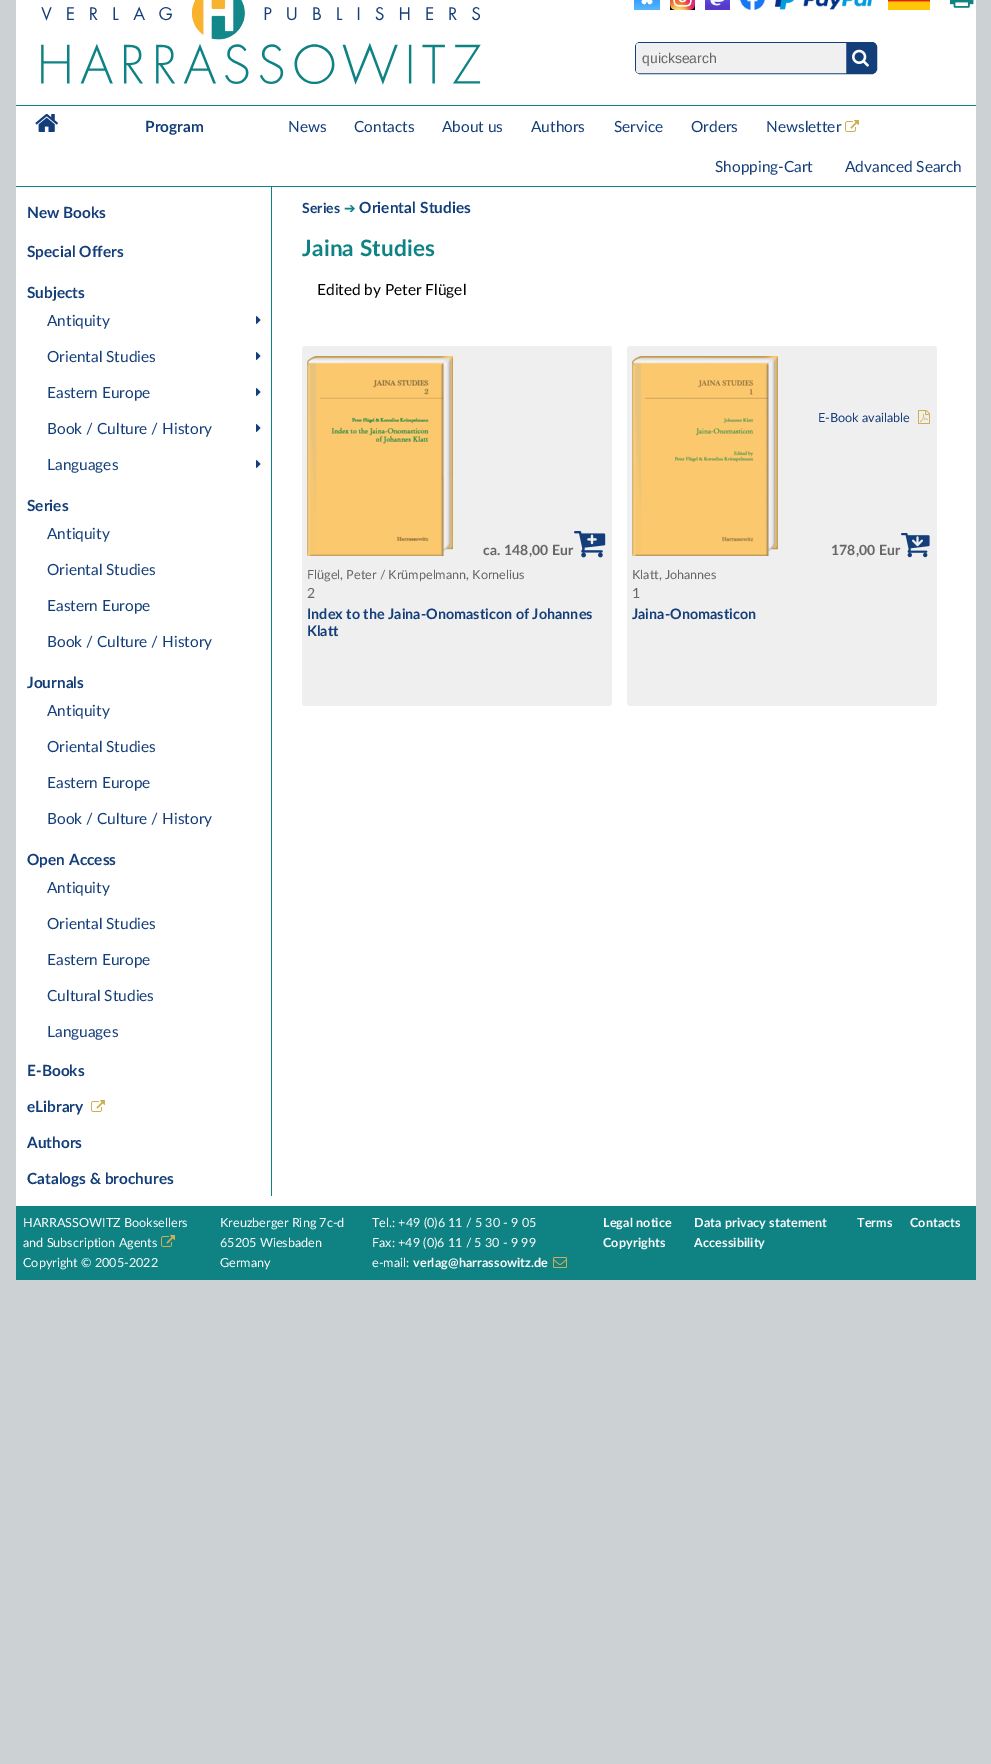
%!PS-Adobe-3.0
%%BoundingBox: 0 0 991 1764
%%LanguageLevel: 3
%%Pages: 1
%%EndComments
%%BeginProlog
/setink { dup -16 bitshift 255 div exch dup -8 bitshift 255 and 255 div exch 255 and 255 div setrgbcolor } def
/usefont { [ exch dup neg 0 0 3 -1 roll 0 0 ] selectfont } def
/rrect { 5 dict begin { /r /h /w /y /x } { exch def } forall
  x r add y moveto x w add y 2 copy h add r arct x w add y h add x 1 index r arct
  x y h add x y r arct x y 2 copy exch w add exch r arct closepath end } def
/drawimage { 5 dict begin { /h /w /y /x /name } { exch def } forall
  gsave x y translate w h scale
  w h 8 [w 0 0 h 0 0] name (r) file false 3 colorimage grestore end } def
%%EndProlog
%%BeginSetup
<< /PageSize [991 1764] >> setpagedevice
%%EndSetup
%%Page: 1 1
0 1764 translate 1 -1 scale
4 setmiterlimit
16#CCD2D3 setink
0 0 991 1764 rectfill
16#FFFFFF setink
16 0 960 186 rectfill
(img1.raw) 41 0 440 85 drawimage
(img2.raw) 634 0 26 10 drawimage
(img3.raw) 670 0 25 10 drawimage
(img4.raw) 705 0 25 10 drawimage
(img5.raw) 740 0 25 10 drawimage
(img6.raw) 775 0 98 10 drawimage
(img7.raw) 888 0 42 10 drawimage
(img8.raw) 950 0 24 8 drawimage
16#143E7A setink
635.5 42.5 241 31 4.5 rrect gsave fill grestore
stroke
16#F0F0F0 setink
639 43.5 moveto 845.5 43.5 lineto 845.5 72.5 lineto 639 72.5 lineto 637.5 72.5 636.5 71.5 636.5 70 curveto 636.5 46 lineto 636.5 44.5 637.5 43.5 639 43.5 curveto closepath gsave fill grestore
stroke
/LiberationSans-Regular 14 usefont
16#666666 setink
642 63 moveto (quicksearch) show
(img9.raw) 852 49 17 18 drawimage
16#0F8284 setink
16 105 960 1 rectfill
16 186 960 1 rectfill
(img10.raw) 35 114 23 18 drawimage
/Lato-Bold 15.4 usefont
16#143E7A setink
145 132 moveto (Program) show
/Lato-Regular 15.4 usefont
[
    [(News) 288 132]
    [(Contacts) 354 132]
    [(About us) 442 132]
    [(Authors) 531 132]
    [(Service) 614 132]
    [(Orders) 691 132]
    [(Newsletter) 766 132]
] { aload pop moveto show } forall
(img11.raw) 845 120 14 12 drawimage
715 172 moveto (Shopping-Cart) show
845 172 moveto (Advanced Search) show
16#FFFFFF setink
16 187 960 1009 rectfill
16#0F8284 setink
271 187 1 1010 rectfill
/Lato-Bold 15.4 usefont
16#143E7A setink
[
    [(New Books) 27 218]
    [(Special Offers) 27 257]
    [(Subjects) 27 298]
] { aload pop moveto show } forall
/Lato-Regular 15.4 usefont
47 326 moveto (Antiquity) show
(img12.raw) 256 316 5 8 drawimage
47 362 moveto (Oriental Studies) show
(img12.raw) 256 352 5 8 drawimage
47 398 moveto (Eastern Europe) show
(img12.raw) 256 388 5 8 drawimage
47 434 moveto (Book / Culture / History) show
(img12.raw) 256 424 5 8 drawimage
47 470 moveto (Languages) show
(img12.raw) 256 460 5 8 drawimage
/Lato-Bold 15.4 usefont
27 511 moveto (Series) show
/Lato-Regular 15.4 usefont
[
    [(Antiquity) 47 539]
    [(Oriental Studies) 47 575]
    [(Eastern Europe) 47 611]
    [(Book / Culture / History) 47 647]
] { aload pop moveto show } forall
/Lato-Bold 15.4 usefont
27 688 moveto (Journals) show
/Lato-Regular 15.4 usefont
[
    [(Antiquity) 47 716]
    [(Oriental Studies) 47 752]
    [(Eastern Europe) 47 788]
    [(Book / Culture / History) 47 824]
] { aload pop moveto show } forall
/Lato-Bold 15.4 usefont
27 865 moveto (Open Access) show
/Lato-Regular 15.4 usefont
[
    [(Antiquity) 47 893]
    [(Oriental Studies) 47 929]
    [(Eastern Europe) 47 965]
    [(Cultural Studies) 47 1001]
    [(Languages) 47 1037]
] { aload pop moveto show } forall
/Lato-Bold 15.4 usefont
27 1076 moveto (E-Books) show
27 1112 moveto (eLibrary) show
(img11.raw) 91 1100 14 12 drawimage
27 1148 moveto (Authors) show
27 1184 moveto (Catalogs & brochures) show
/Lato-Bold 14 usefont
302 213 moveto 0.1 0 (Series) ashow
/DejaVuSans-Regular 14 usefont
16#0F8284 setink
344 213 moveto (➔) show
/Lato-Bold 15.4 usefont
16#143E7A setink
359 213 moveto 0.1 0 (Oriental Studies) ashow
/Lato-Bold 22.5 usefont
16#0F8284 setink
302 256 moveto 0.25 0 (Jaina Studies) ashow
/Lato-Regular 15.4 usefont
16#000000 setink
317 295 moveto (Edited by Peter Flügel) show
16#EFEFEF setink
302 346 310 360 3 rrect fill
(img13.raw) 307 356 146 200 drawimage
/Lato-Bold 14 usefont
16#666666 setink
483 555 moveto 0.1 0 (ca. 148,00 Eur) ashow
(img14.raw) 574 531 32 27 drawimage
/Lato-Regular 12.6 usefont
307 579 moveto (Flügel, Peter / Krümpelmann, Kornelius) show
/Lato-Regular 14 usefont
307 598 moveto (2) show
/Lato-Bold 14.4 usefont
16#143E7A setink
307 619 moveto (Index to the Jaina-Onomasticon of Johannes) show
307 636 moveto (Klatt) show
16#EFEFEF setink
627 346 310 360 3 rrect fill
(img15.raw) 632 356 146 200 drawimage
/Lato-Regular 12.6 usefont
16#143E7A setink
818 422 moveto (E-Book available) show
(img16.raw) 918 410 12 14 drawimage
/Lato-Bold 14 usefont
16#666666 setink
831 555 moveto 0.1 0 (178,00 Eur) ashow
(img17.raw) 901 533 29 25 drawimage
/Lato-Regular 12.6 usefont
632 579 moveto (Klatt, Johannes) show
/Lato-Regular 14 usefont
632 598 moveto (1) show
/Lato-Bold 14.4 usefont
16#143E7A setink
632 619 moveto (Jaina-Onomasticon) show
16#0F8284 setink
16 1206 960 74 rectfill
16#FFFFFF setink
16 1196 960 10 rectfill
/Lato-Regular 12.6 usefont
23 1227 moveto (HARRASSOWITZ Booksellers) show
23 1247 moveto (and Subscription Agents) show
(img18.raw) 161 1235 14 12 drawimage
[
    [(Copyright © 2005-2022) 23 1267]
    [(Kreuzberger Ring 7c-d) 220 1227]
    [(65205 Wiesbaden) 220 1247]
    [(Germany) 220 1267]
    [(Tel.: +49 \(0\)6 11 / 5 30 - 9 05) 372 1227]
    [(Fax: +49 \(0\)6 11 / 5 30 - 9 99) 372 1247]
    [(e-mail:) 372 1267]
] { aload pop moveto show } forall
/Lato-Bold 12.6 usefont
413 1267 moveto 0.1 0 (verlag@harrassowitz.de) ashow
(img19.raw) 553 1257 14 11 drawimage
603 1227 moveto 0.1 0 (Legal notice) ashow
603 1247 moveto 0.1 0 (Copyrights) ashow
694 1227 moveto 0.1 0 (Data privacy statement) ashow
694 1247 moveto 0.1 0 (Accessibility) ashow
857 1227 moveto 0.1 0 (Terms) ashow
910 1227 moveto 0.1 0 (Contacts) ashow
showpage
%%EOF
